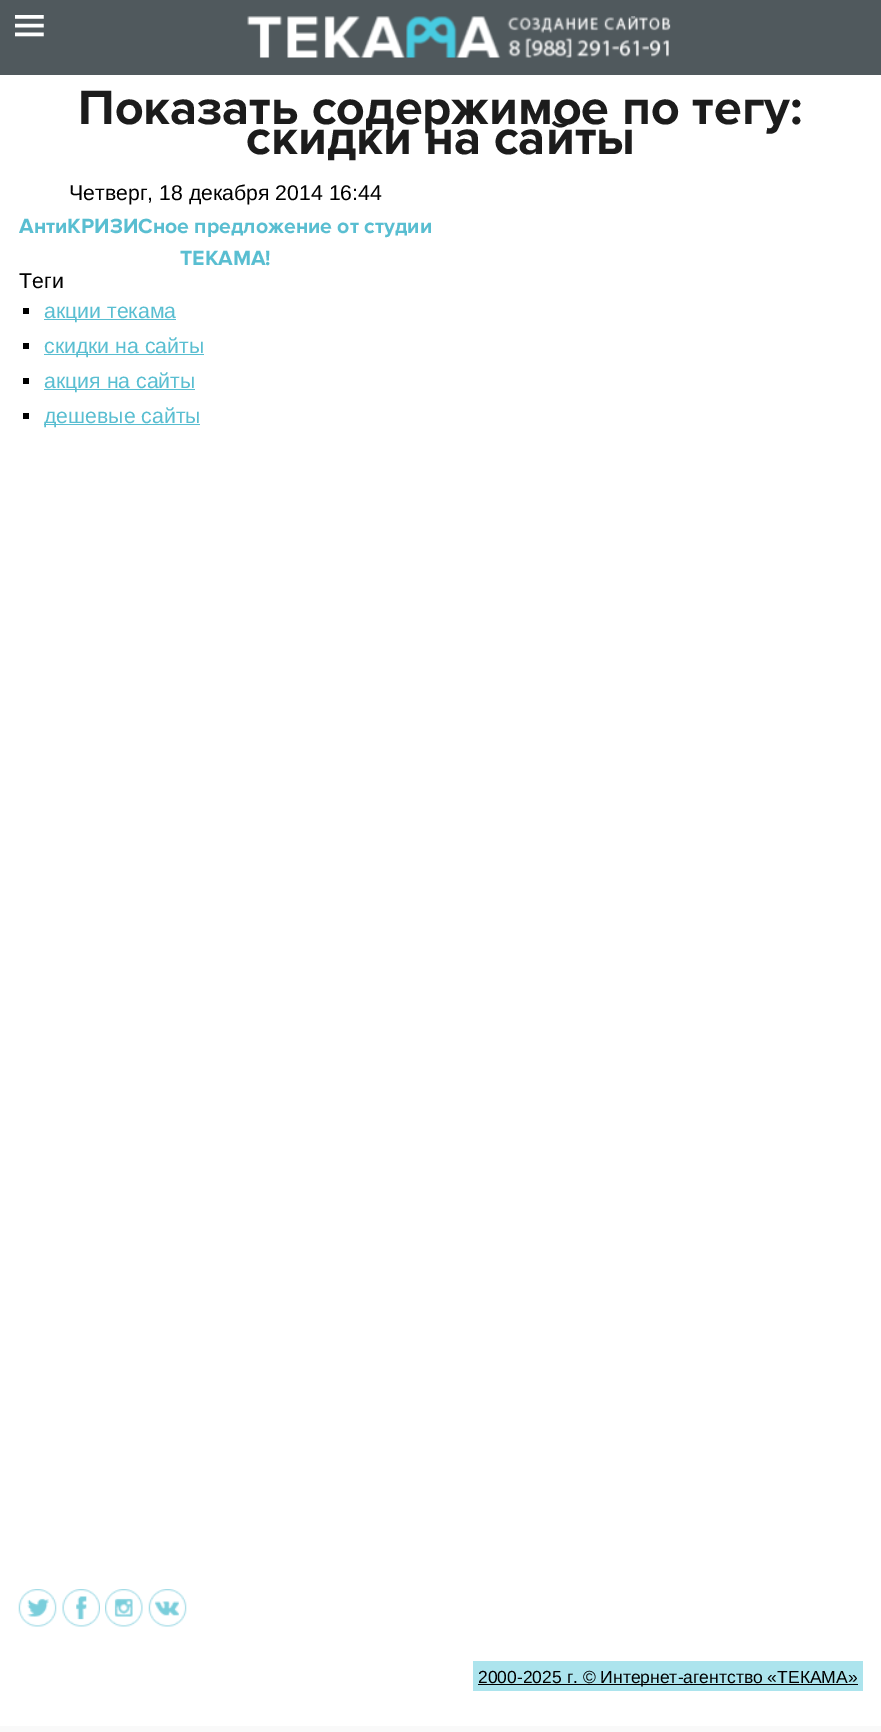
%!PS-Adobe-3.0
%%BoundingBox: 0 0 881 1732
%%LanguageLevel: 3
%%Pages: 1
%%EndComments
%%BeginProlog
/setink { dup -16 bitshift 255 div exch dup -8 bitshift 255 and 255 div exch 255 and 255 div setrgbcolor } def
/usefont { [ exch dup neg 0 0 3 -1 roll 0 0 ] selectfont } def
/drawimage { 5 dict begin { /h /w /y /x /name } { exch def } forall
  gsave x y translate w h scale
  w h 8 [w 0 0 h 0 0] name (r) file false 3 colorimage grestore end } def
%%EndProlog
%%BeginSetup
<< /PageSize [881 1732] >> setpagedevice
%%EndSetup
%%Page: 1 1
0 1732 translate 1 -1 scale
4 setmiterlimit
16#F9F9F9 setink
0 0 881 1732 rectfill
16#50595D setink
0 0 881 75 rectfill
(img1.raw) 15 15 29 22 drawimage
16#FFFFFF setink
0 75 881 1651 rectfill
(img2.raw) 247 16 424 42 drawimage
/ProximaNova-Bold 50 usefont
16#1C1C1C setink
78 124 moveto (Показать содержимое по тегу:) show
246 154 moveto (скидки на сайты) show
/LiberationSans-Regular 21.25 usefont
16#000000 setink
69 200 moveto (Четверг, 18 декабря 2014 16:44) show
/ProximaNova-Bold 21.25 usefont
16#59BED1 setink
19 233 moveto (АнтиКРИЗИСное предложение от студии) show
180 265 moveto (ТЕКАМА!) show
/LiberationSans-Regular 21.25 usefont
16#000000 setink
19 288 moveto (Теги) show
23 308 6 6 rectfill
16#59BED1 setink
44 319 132 1 rectfill
44 318 moveto (акции текама) show
16#000000 setink
23 343 6 6 rectfill
16#59BED1 setink
44 354 160 1 rectfill
44 353 moveto (скидки на сайты) show
16#000000 setink
23 378 6 6 rectfill
16#59BED1 setink
44 389 151 1 rectfill
44 388 moveto (акция на сайты) show
16#000000 setink
23 413 6 6 rectfill
16#59BED1 setink
44 424 156 1 rectfill
44 423 moveto (дешевые сайты) show
(img3.raw) 18 1589 39 38 drawimage
(img4.raw) 62 1589 38 38 drawimage
(img5.raw) 105 1589 38 38 drawimage
(img6.raw) 148 1589 39 38 drawimage
16#ACE4ED setink
473 1661 390 30 rectfill
16#000000 setink
478 1684 380 1 rectfill
/LiberationSans-Regular 17.5 usefont
478 1683 moveto (2000-2025 г. © Интернет-агентство «ТЕКАМА») show
showpage
%%EOF
